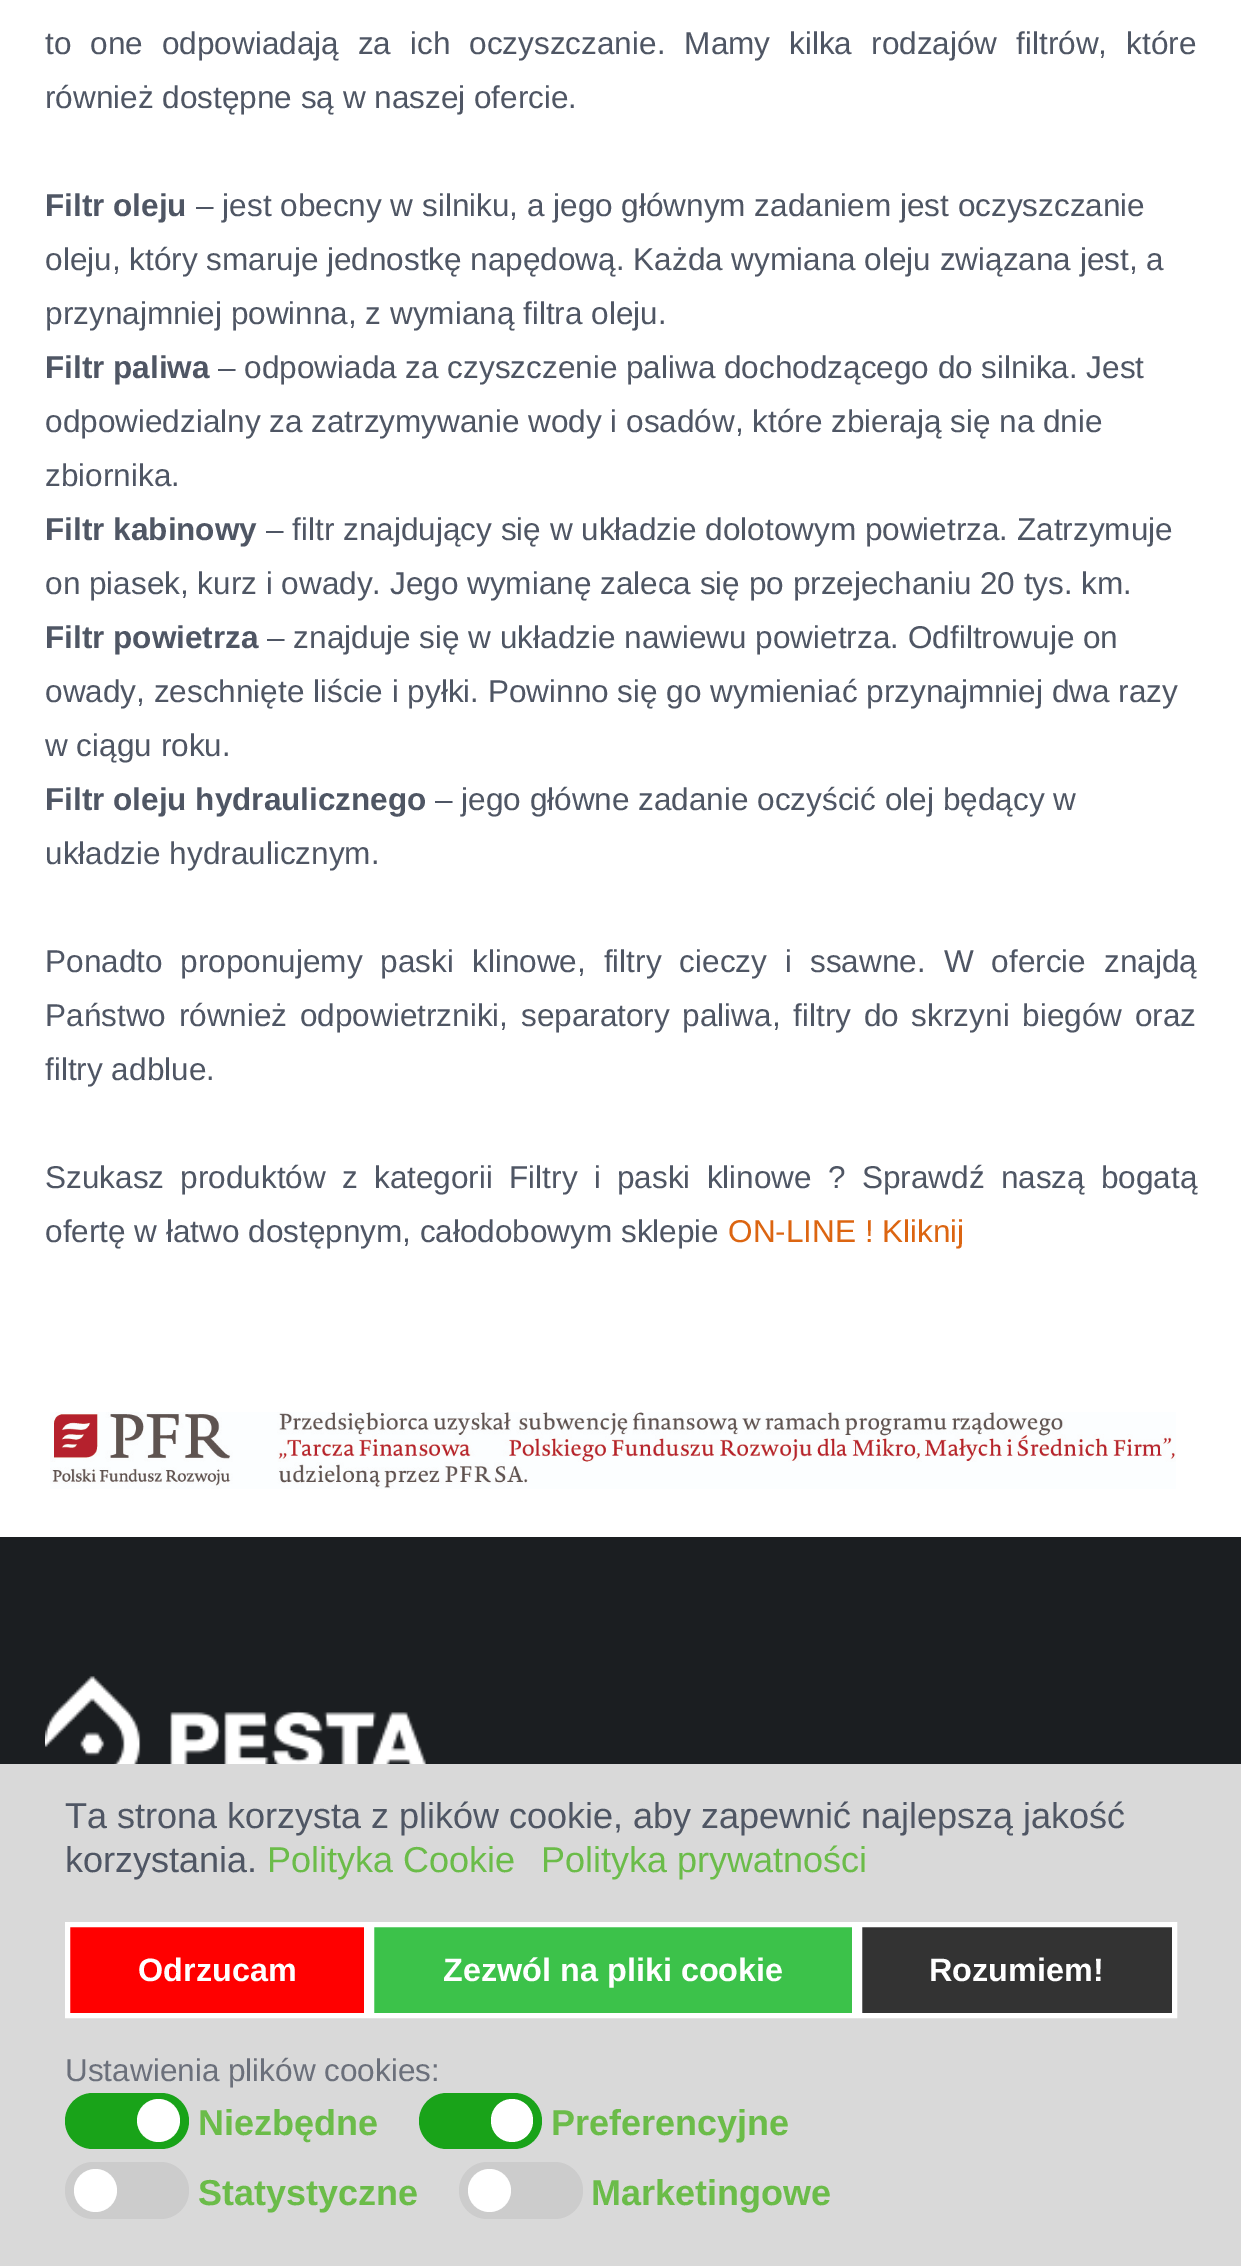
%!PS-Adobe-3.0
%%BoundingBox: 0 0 1241 2266
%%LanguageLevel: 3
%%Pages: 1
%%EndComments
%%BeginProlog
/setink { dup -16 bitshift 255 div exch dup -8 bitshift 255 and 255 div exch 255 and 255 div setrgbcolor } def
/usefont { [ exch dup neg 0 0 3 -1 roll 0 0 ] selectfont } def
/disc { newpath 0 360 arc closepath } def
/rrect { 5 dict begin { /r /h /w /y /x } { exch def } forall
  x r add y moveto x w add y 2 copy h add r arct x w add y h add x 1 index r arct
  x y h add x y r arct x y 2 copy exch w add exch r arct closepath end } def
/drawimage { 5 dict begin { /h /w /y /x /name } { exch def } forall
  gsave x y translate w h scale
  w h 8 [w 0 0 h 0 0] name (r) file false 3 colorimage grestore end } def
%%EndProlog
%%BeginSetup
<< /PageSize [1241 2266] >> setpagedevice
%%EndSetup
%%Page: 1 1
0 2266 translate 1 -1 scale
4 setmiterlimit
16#FFFFFF setink
0 0 1241 2266 rectfill
/LiberationSans-Regular 31.5 usefont
16#4F5664 setink
45 54 moveto 10.25 0 32 (to one odpowiadają za ich oczyszczanie. Mamy kilka rodzajów filtrów, które) widthshow
45 108 moveto (również dostępne są w naszej ofercie.) show
/LiberationSans-Bold 31.5 usefont
45 216 moveto (Filtr oleju) show
/LiberationSans-Regular 31.5 usefont
[
    [(– jest obecny w silniku, a jego głównym zadaniem jest oczyszczanie) 196 216]
    [(oleju, który smaruje jednostkę napędową. Każda wymiana oleju związana jest, a) 45 270]
    [(przynajmniej powinna, z wymianą filtra oleju.) 45 324]
] { aload pop moveto show } forall
/LiberationSans-Bold 31.5 usefont
45 378 moveto (Filtr paliwa) show
/LiberationSans-Regular 31.5 usefont
[
    [(– odpowiada za czyszczenie paliwa dochodzącego do silnika. Jest) 218 378]
    [(odpowiedzialny za zatrzymywanie wody i osadów, które zbierają się na dnie) 45 432]
    [(zbiornika.) 45 486]
] { aload pop moveto show } forall
/LiberationSans-Bold 31.5 usefont
45 540 moveto (Filtr kabinowy) show
/LiberationSans-Regular 31.5 usefont
266 540 moveto (– filtr znajdujący się w układzie dolotowym powietrza. Zatrzymuje) show
45 594 moveto (on piasek, kurz i owady. Jego wymianę zaleca się po przejechaniu 20 tys. km.) show
/LiberationSans-Bold 31.5 usefont
45 648 moveto (Filtr powietrza) show
/LiberationSans-Regular 31.5 usefont
[
    [(– znajduje się w układzie nawiewu powietrza. Odfiltrowuje on) 267 648]
    [(owady, zeschnięte liście i pyłki. Powinno się go wymieniać przynajmniej dwa razy) 45 702]
    [(w ciągu roku.) 45 756]
] { aload pop moveto show } forall
/LiberationSans-Bold 31.5 usefont
45 810 moveto (Filtr oleju hydraulicznego) show
/LiberationSans-Regular 31.5 usefont
435 810 moveto (– jego główne zadanie oczyścić olej będący w) show
45 864 moveto (układzie hydraulicznym.) show
45 972 moveto 9.25 0 32 (Ponadto proponujemy paski klinowe, filtry cieczy i ssawne. W ofercie znajdą) widthshow
45 1026 moveto 4 0 32 (Państwo również odpowietrzniki, separatory paliwa, filtry do skrzyni biegów oraz) widthshow
45 1080 moveto (filtry adblue.) show
45 1188 moveto 7.5 0 32 (Szukasz produktów z kategorii Filtry i paski klinowe) widthshow
828 1188 moveto 7.5 0 32 (? Sprawdź naszą bogatą) widthshow
45 1242 moveto (ofertę w łatwo dostępnym, całodobowym sklepie) show
16#DC6511 setink
728 1242 moveto (ON-LINE ! Kliknij) show
(img1.raw) 50 1412 1126 77 drawimage
16#1B1E21 setink
0 1537 1241 227 rectfill
(img2.raw) 45 1676 382 88 drawimage
16#D9D9D9 setink
0 1764 1241 502 rectfill
/LiberationSans-Regular 36 usefont
16#4F5664 setink
65 1828 moveto (Ta strona korzysta z plików cookie, aby zapewnić najlepszą jakość) show
65 1872 moveto (korzystania.) show
16#6BBC49 setink
267 1872 moveto (Polityka Cookie) show
541 1872 moveto (Polityka prywatności) show
16#FF0000 setink
67.5 1924.5 moveto 366.5 1924.5 lineto 366.5 2015.5 lineto 67.5 2015.5 lineto closepath gsave fill grestore
16#FFFFFF setink
5 setlinewidth
stroke
/LiberationSans-Bold 32.4 usefont
138 1981 moveto (Odrzucam) show
16#3CC24A setink
371.5 1924.5 moveto 854.5 1924.5 lineto 854.5 2015.5 lineto 371.5 2015.5 lineto closepath gsave fill grestore
16#FFFFFF setink
stroke
443 1981 moveto (Zezwól na pliki cookie) show
16#333333 setink
859.5 1924.5 moveto 1174.5 1924.5 lineto 1174.5 2015.5 lineto 859.5 2015.5 lineto closepath gsave fill grestore
16#FFFFFF setink
stroke
929 1981 moveto (Rozumiem!) show
/LiberationSans-Regular 31.5 usefont
16#6B707B setink
65 2081 moveto (Ustawienia plików cookies:) show
16#19A319 setink
65 2093 124 56 28 rrect fill
16#FFFFFF setink
158.5 2120.5 21.5 disc fill
/LiberationSans-Bold 36 usefont
16#6BBC49 setink
198 2135 moveto (Niezbędne) show
16#19A319 setink
419 2093 123 56 28 rrect fill
16#FFFFFF setink
491 2099 42 43 21 rrect fill
16#6BBC49 setink
551 2135 moveto (Preferencyjne) show
16#CCCCCC setink
65 2162 124 57 28.5 rrect fill
16#FFFFFF setink
95.5 2190.5 21.5 disc fill
16#6BBC49 setink
198 2205 moveto (Statystyczne) show
16#CCCCCC setink
459 2162 124 57 28.5 rrect fill
16#FFFFFF setink
489.5 2190.5 21.5 disc fill
16#6BBC49 setink
591 2205 moveto (Marketingowe) show
showpage
%%EOF
